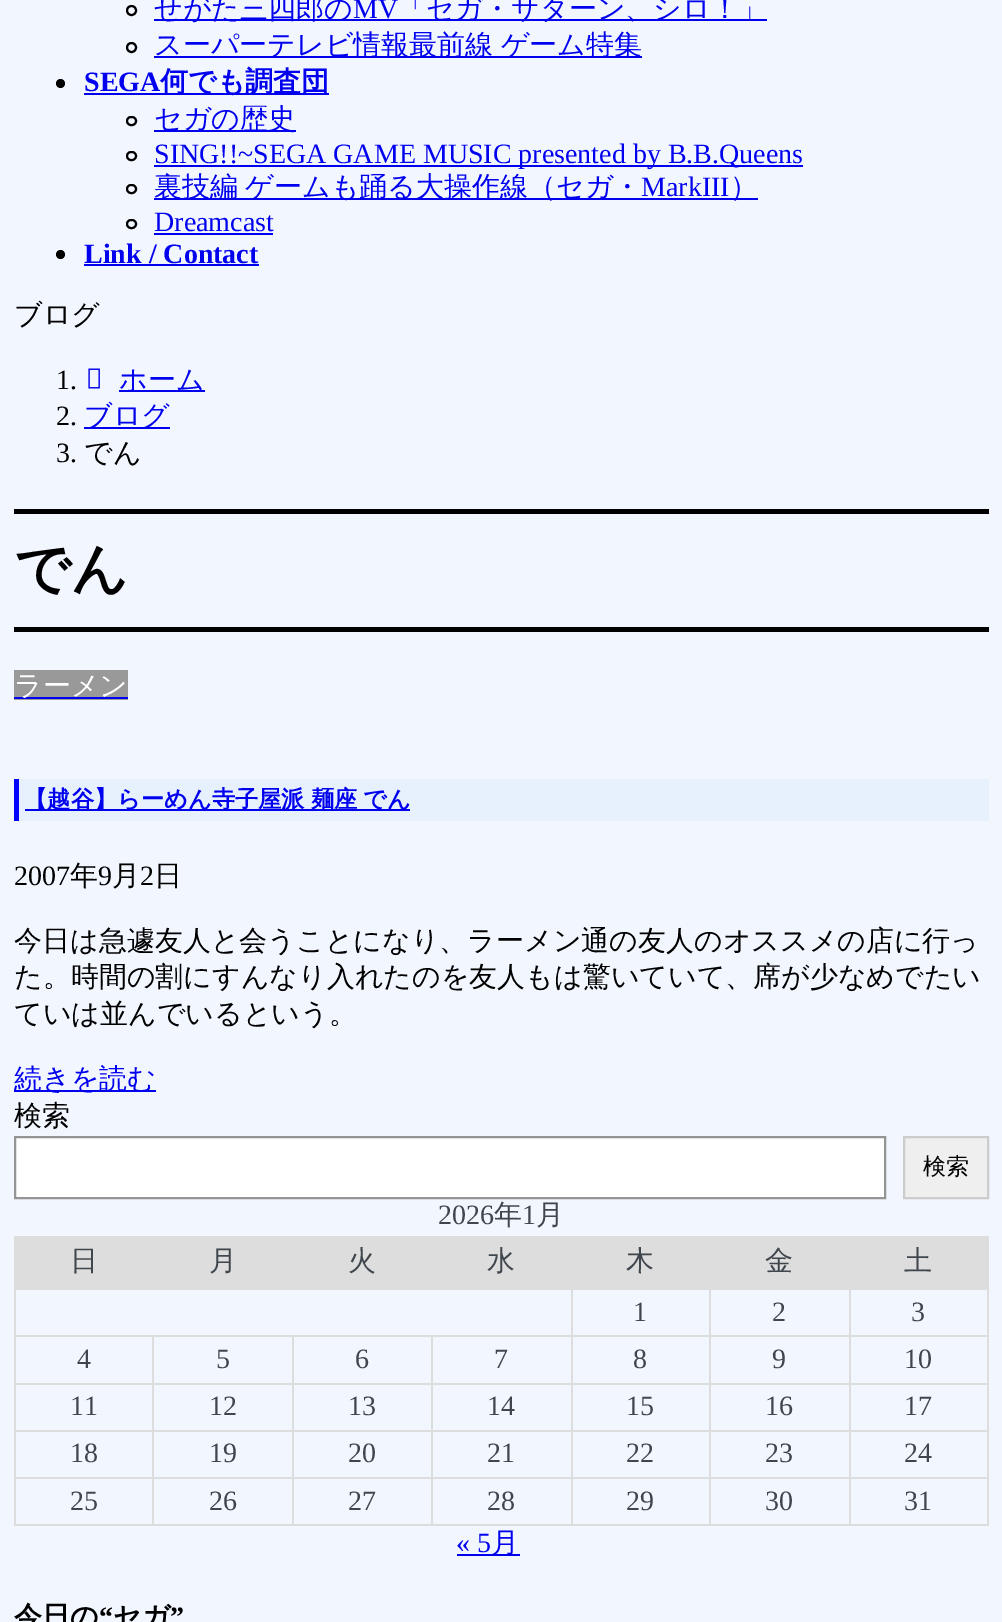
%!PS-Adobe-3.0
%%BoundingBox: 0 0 1002 1622
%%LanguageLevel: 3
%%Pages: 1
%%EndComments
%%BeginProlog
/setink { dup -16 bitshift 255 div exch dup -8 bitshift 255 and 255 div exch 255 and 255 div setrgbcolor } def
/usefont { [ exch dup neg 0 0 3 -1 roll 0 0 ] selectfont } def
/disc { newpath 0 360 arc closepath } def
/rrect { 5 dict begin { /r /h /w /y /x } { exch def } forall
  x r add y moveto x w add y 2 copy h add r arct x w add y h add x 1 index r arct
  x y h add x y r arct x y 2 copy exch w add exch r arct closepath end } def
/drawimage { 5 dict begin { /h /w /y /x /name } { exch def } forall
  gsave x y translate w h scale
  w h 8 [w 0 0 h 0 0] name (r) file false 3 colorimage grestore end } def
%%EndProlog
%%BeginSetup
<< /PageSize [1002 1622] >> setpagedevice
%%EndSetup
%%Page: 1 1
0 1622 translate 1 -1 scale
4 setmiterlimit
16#F2F6FF setink
0 0 1002 1622 rectfill
16#000000 setink
2 setlinewidth
131.5 10.5 4.5 disc stroke
16#0000EE setink
154 19 613 2 rectfill
/WenQuanYiZenHei-Medium 28 usefont
154 18 moveto (せがた三四郎の) show
/LiberationSerif-Regular 28 usefont
353 18 moveto (MV) show
/WenQuanYiZenHei-Medium 28 usefont
398 18 moveto (「セガ・サターン、シロ！」) show
16#000000 setink
131.5 47.5 4.5 disc stroke
16#0000EE setink
154 56 488 2 rectfill
154 54 moveto -1 0 32 (スーパーテレビ情報最前線 ゲーム特集) widthshow
16#000000 setink
60.5 83.5 4.5 disc fill
/LiberationSerif-Bold 28 usefont
16#0000EE setink
84 91 moveto (SEGA) show
84 93 245 2 rectfill
/WenQuanYiZenHei-Bold 28 usefont
160 91 moveto (何でも調査団) show
16#000000 setink
127 117 9 8 4 rrect stroke
16#0000EE setink
154 130 142 2 rectfill
/WenQuanYiZenHei-Medium 28 usefont
154 128 moveto (セガの歴史) show
16#000000 setink
127 152 9 8 4 rrect stroke
16#0000EE setink
154 165 649 2 rectfill
/LiberationSerif-Regular 28 usefont
154 163 moveto (SING!!~SEGA GAME MUSIC presented by B.B.Queens) show
16#000000 setink
127 185 9 8 4 rrect stroke
16#0000EE setink
154 198 604 2 rectfill
/WenQuanYiZenHei-Medium 28 usefont
154 196 moveto -1 0 32 (裏技編 ゲームも踊る大操作線（セガ・) widthshow
/LiberationSerif-Regular 28 usefont
641 196 moveto (MarkIII) show
/WenQuanYiZenHei-Medium 28 usefont
730 196 moveto (）) show
16#000000 setink
127 220 9 8 4 rrect stroke
/LiberationSerif-Regular 28 usefont
16#0000EE setink
154 231 moveto (Dreamcast) show
154 233 119 2 rectfill
16#000000 setink
60.5 254.5 4.5 disc fill
/LiberationSerif-Bold 28 usefont
16#0000EE setink
84 263 moveto (Link / Contact) show
84 264 175 2 rectfill
/WenQuanYiZenHei-Medium 28 usefont
16#000000 setink
14 324 moveto (ブログ) show
/LiberationSerif-Regular 28 usefont
56 389 moveto (1.) show
(img1.raw) 88 368 12 21 drawimage
16#0000EE setink
119 390 86 2 rectfill
/WenQuanYiZenHei-Medium 28 usefont
119 389 moveto (ホーム) show
/LiberationSerif-Regular 28 usefont
16#000000 setink
56 425 moveto (2.) show
16#0000EE setink
84 427 86 2 rectfill
/WenQuanYiZenHei-Medium 28 usefont
84 425 moveto (ブログ) show
/LiberationSerif-Regular 28 usefont
16#000000 setink
56 462 moveto (3.) show
/WenQuanYiZenHei-Medium 28 usefont
84 462 moveto (でん) show
14 509 975 5 rectfill
14 627 975 5 rectfill
/WenQuanYiZenHei-Bold 56 usefont
14 588 moveto (でん) show
16#999999 setink
14 670 114 30 rectfill
16#0000EE setink
14 697 114 2 rectfill
/WenQuanYiZenHei-Medium 28 usefont
16#FFFFFF setink
14 695 moveto (ラーメン) show
[
    [19 779 970 42 16#E7F1FD]
    [14 779 5 42 16#0000FF]
    [25 809 385 2 16#0000EE]
] { aload pop setink rectfill } forall
/WenQuanYiZenHei-Bold 23.25 usefont
24 807 moveto -1 0 32 (【越谷】らーめん寺子屋派 麺座 でん) widthshow
/LiberationSerif-Regular 28 usefont
16#000000 setink
14 885 moveto (2007) show
/WenQuanYiZenHei-Medium 28 usefont
70 885 moveto (年) show
/LiberationSerif-Regular 28 usefont
98 885 moveto (9) show
/WenQuanYiZenHei-Medium 28 usefont
112 885 moveto (月) show
/LiberationSerif-Regular 28 usefont
140 885 moveto (2) show
/WenQuanYiZenHei-Medium 28 usefont
[
    [(日) 154 885]
    [(今日は急遽友人と会うことになり、ラーメン通の友人のオススメの店に行っ) 14 950]
    [(た。時間の割にすんなり入れたのを友人もは驚いていて、席が少なめでたい) 14 986]
    [(ていは並んでいるという。) 14 1023]
] { aload pop moveto show } forall
16#0000EE setink
14 1090 142 2 rectfill
14 1088 moveto (続きを読む) show
16#000000 setink
14 1125 moveto (検索) show
16#FFFFFF setink
15 1137 moveto 885 1137 lineto 885 1198 lineto 15 1198 lineto closepath gsave fill grestore
16#949494 setink
stroke
16#EFEFEF setink
904 1137 moveto 988 1137 lineto 988 1198 lineto 904 1198 lineto closepath gsave fill grestore
16#CCCCCC setink
stroke
/WenQuanYiZenHei-Medium 23 usefont
16#000000 setink
923 1174 moveto (検索) show
/LiberationSerif-Regular 28 usefont
16#40464D setink
438 1224 moveto (2026) show
/WenQuanYiZenHei-Medium 28 usefont
494 1224 moveto (年) show
/LiberationSerif-Regular 28 usefont
522 1224 moveto (1) show
/WenQuanYiZenHei-Medium 28 usefont
536 1224 moveto (月) show
[
    [16 1238 138 50 16#DDDDDD]
    [14 1236 140 2 16#DDDDDD]
    [849 1288 140 2 16#DDDDDD]
    [849 1335 140 2 16#DDDDDD]
    [849 1383 140 2 16#DDDDDD]
    [849 1430 140 2 16#DDDDDD]
    [849 1477 140 2 16#DDDDDD]
    [987 1477 2 49 16#DDDDDD]
    [849 1524 140 2 16#DDDDDD]
    [849 1477 2 49 16#DDDDDD]
    [709 1477 142 2 16#DDDDDD]
    [849 1430 2 49 16#DDDDDD]
    [709 1430 142 2 16#DDDDDD]
    [849 1383 2 49 16#DDDDDD]
    [709 1383 142 2 16#DDDDDD]
    [849 1335 2 49 16#DDDDDD]
    [709 1335 142 2 16#DDDDDD]
    [849 1288 2 49 16#DDDDDD]
    [709 1288 142 2 16#DDDDDD]
    [709 1524 142 2 16#DDDDDD]
    [709 1477 2 49 16#DDDDDD]
    [571 1477 140 2 16#DDDDDD]
    [709 1430 2 49 16#DDDDDD]
    [571 1430 140 2 16#DDDDDD]
    [709 1383 2 49 16#DDDDDD]
    [571 1383 140 2 16#DDDDDD]
    [709 1335 2 49 16#DDDDDD]
    [571 1335 140 2 16#DDDDDD]
    [709 1288 2 49 16#DDDDDD]
    [571 1288 140 2 16#DDDDDD]
    [571 1524 140 2 16#DDDDDD]
    [571 1477 2 49 16#DDDDDD]
    [431 1477 141 2 16#DDDDDD]
    [571 1430 2 49 16#DDDDDD]
    [431 1430 141 2 16#DDDDDD]
    [571 1383 2 49 16#DDDDDD]
    [431 1383 141 2 16#DDDDDD]
    [571 1335 2 49 16#DDDDDD]
    [431 1335 141 2 16#DDDDDD]
    [571 1288 2 49 16#DDDDDD]
    [14 1288 558 2 16#DDDDDD]
    [431 1524 141 2 16#DDDDDD]
    [431 1477 2 49 16#DDDDDD]
    [292 1477 140 2 16#DDDDDD]
    [431 1430 2 49 16#DDDDDD]
    [292 1430 140 2 16#DDDDDD]
    [431 1383 2 49 16#DDDDDD]
    [292 1383 140 2 16#DDDDDD]
    [431 1335 2 49 16#DDDDDD]
    [292 1335 140 2 16#DDDDDD]
    [292 1524 140 2 16#DDDDDD]
    [292 1477 2 49 16#DDDDDD]
    [152 1477 142 2 16#DDDDDD]
    [292 1430 2 49 16#DDDDDD]
    [152 1430 142 2 16#DDDDDD]
    [292 1383 2 49 16#DDDDDD]
    [152 1383 142 2 16#DDDDDD]
    [292 1335 2 49 16#DDDDDD]
    [152 1335 142 2 16#DDDDDD]
    [152 1524 142 2 16#DDDDDD]
    [152 1477 2 49 16#DDDDDD]
    [14 1477 140 2 16#DDDDDD]
    [152 1430 2 49 16#DDDDDD]
    [14 1430 140 2 16#DDDDDD]
    [152 1383 2 49 16#DDDDDD]
    [14 1383 140 2 16#DDDDDD]
    [152 1335 2 49 16#DDDDDD]
    [14 1335 140 2 16#DDDDDD]
    [14 1524 140 2 16#DDDDDD]
    [14 1477 2 49 16#DDDDDD]
    [14 1430 2 49 16#DDDDDD]
    [14 1383 2 49 16#DDDDDD]
    [14 1335 2 49 16#DDDDDD]
    [14 1288 2 49 16#DDDDDD]
    [14 1236 2 54 16#DDDDDD]
] { aload pop setink rectfill } forall
16#40464D setink
70 1270 moveto (日) show
16#DDDDDD setink
154 1236 835 52 rectfill
16#40464D setink
[
    [(月) 209 1270]
    [(火) 348 1270]
    [(水) 487 1270]
    [(木) 626 1270]
    [(金) 765 1270]
    [(土) 904 1270]
] { aload pop moveto show } forall
/LiberationSerif-Regular 28 usefont
633 1321 moveto (1) show
772 1321 moveto (2) show
[
    [987 1430 2 49 16#DDDDDD]
    [987 1383 2 49 16#DDDDDD]
    [987 1335 2 49 16#DDDDDD]
    [987 1288 2 49 16#DDDDDD]
] { aload pop setink rectfill } forall
16#40464D setink
[
    [(3) 911 1321]
    [(4) 77 1368]
    [(5) 216 1368]
    [(6) 355 1368]
    [(7) 494 1368]
    [(8) 633 1368]
    [(9) 772 1368]
    [(10) 904 1368]
    [(11) 70 1415]
    [(12) 209 1415]
    [(13) 348 1415]
    [(14) 487 1415]
    [(15) 626 1415]
    [(16) 765 1415]
    [(17) 904 1415]
    [(18) 70 1462]
    [(19) 209 1462]
    [(20) 348 1462]
    [(21) 487 1462]
    [(22) 626 1462]
    [(23) 765 1462]
    [(24) 904 1462]
    [(25) 70 1510]
    [(26) 209 1510]
    [(27) 348 1510]
    [(28) 487 1510]
    [(29) 626 1510]
    [(30) 765 1510]
    [(31) 904 1510]
] { aload pop moveto show } forall
16#0000EE setink
456 1552 moveto (« 5) show
457 1554 63 2 rectfill
/WenQuanYiZenHei-Medium 28 usefont
491 1552 moveto (月) show
/WenQuanYiZenHei-Bold 28 usefont
16#000000 setink
14 1626 moveto (今日の) show
/LiberationSerif-Bold 28 usefont
99 1626 moveto (“) show
/WenQuanYiZenHei-Bold 28 usefont
113 1626 moveto (セガ) show
/LiberationSerif-Bold 28 usefont
170 1626 moveto (”) show
showpage
%%EOF
